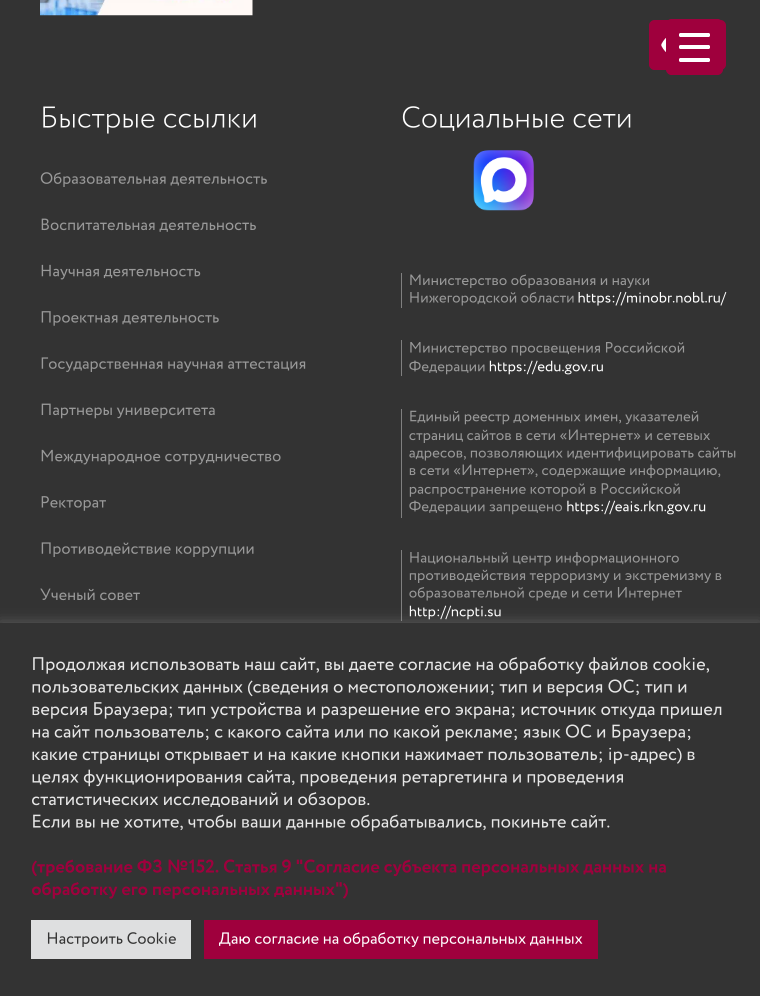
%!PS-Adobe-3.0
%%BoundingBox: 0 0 760 996
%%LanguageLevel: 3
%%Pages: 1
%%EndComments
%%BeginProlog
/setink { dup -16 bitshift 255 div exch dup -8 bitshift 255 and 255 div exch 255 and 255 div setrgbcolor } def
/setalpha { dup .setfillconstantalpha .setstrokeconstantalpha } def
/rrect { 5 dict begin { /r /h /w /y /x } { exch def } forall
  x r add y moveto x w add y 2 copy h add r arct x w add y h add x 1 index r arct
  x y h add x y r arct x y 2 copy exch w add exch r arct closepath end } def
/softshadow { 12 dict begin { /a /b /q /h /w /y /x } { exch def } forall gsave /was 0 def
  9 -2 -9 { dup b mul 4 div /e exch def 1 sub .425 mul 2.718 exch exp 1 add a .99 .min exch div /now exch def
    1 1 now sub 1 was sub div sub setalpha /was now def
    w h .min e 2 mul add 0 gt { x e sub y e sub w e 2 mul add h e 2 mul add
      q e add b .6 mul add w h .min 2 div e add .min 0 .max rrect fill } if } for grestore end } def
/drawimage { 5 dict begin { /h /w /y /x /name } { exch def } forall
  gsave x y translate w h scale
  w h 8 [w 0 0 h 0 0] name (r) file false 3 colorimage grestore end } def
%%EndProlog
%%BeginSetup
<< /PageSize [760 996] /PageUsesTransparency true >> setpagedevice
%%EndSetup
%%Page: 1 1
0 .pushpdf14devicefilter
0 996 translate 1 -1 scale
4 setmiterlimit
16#333333 setink
0 0 760 996 rectfill
(img1.raw) 40 0 213 16 drawimage
(img2.raw) 43 106 213 28 drawimage
(img3.raw) 40 172 227 15 drawimage
(img4.raw) 41 218 215 14 drawimage
(img5.raw) 41 264 160 16 drawimage
(img6.raw) 41 311 178 15 drawimage
(img7.raw) 41 357 265 15 drawimage
(img8.raw) 41 403 174 16 drawimage
(img9.raw) 41 449 240 16 drawimage
(img10.raw) 41 496 65 15 drawimage
(img11.raw) 41 542 213 15 drawimage
(img12.raw) 40 588 100 13 drawimage
(img13.raw) 402 106 229 25 drawimage
(img14.raw) 473 150 61 61 drawimage
16#808080 setink
401 273 1 35 rectfill
(img15.raw) 410 274 240 14 drawimage
(img16.raw) 410 292 164 14 drawimage
(img17.raw) 578 291 149 15 drawimage
401 340 1 36 rectfill
(img18.raw) 410 342 275 14 drawimage
(img19.raw) 409 360 76 15 drawimage
(img20.raw) 489 360 114 15 drawimage
401 409 1 109 rectfill
(img21.raw) 410 410 289 15 drawimage
(img22.raw) 409 429 301 14 drawimage
(img23.raw) 409 447 327 14 drawimage
(img24.raw) 409 464 312 14 drawimage
(img25.raw) 409 483 271 14 drawimage
(img26.raw) 409 500 153 15 drawimage
(img27.raw) 567 500 139 15 drawimage
401 550 1 71 rectfill
(img28.raw) 410 552 269 14 drawimage
(img29.raw) 409 569 313 14 drawimage
(img30.raw) 409 587 273 14 drawimage
(img31.raw) 409 605 92 15 drawimage
16#9F003D setink
649 20 77 50 6 rrect fill
(img32.raw) 661 38 5 14 drawimage
666 19 57 56 6 rrect fill
16#FFFFFF setink
679 45 31 4 2 rrect fill
679 33 31 4 2 rrect fill
679 58 31 4 2 rrect fill
16#ACABAB setink
0 621 760 374 0 6 0.3 softshadow
16#333333 setink
0 623 760 373 rectfill
(img33.raw) 33 657 676 17 drawimage
(img34.raw) 32 679 655 18 drawimage
(img35.raw) 32 702 690 17 drawimage
(img36.raw) 32 724 659 18 drawimage
(img37.raw) 32 747 663 17 drawimage
(img38.raw) 32 769 591 18 drawimage
(img39.raw) 32 792 338 17 drawimage
(img40.raw) 33 814 577 18 drawimage
(img41.raw) 32 859 634 18 drawimage
(img42.raw) 31 882 317 17 drawimage
16#DEDFE0 setink
31 920 160 39 rectfill
(img43.raw) 47 932 129 15 drawimage
16#9F003D setink
204 920 394 39 rectfill
(img44.raw) 219 932 364 15 drawimage
.poppdf14devicefilter showpage
%%EOF
